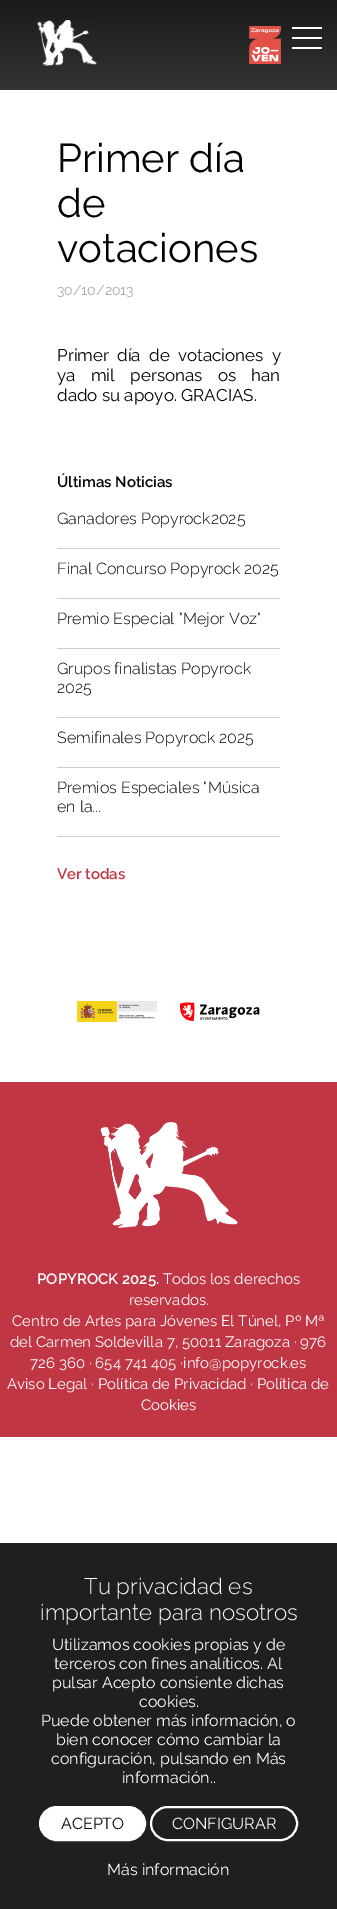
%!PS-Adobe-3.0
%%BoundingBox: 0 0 337 1909
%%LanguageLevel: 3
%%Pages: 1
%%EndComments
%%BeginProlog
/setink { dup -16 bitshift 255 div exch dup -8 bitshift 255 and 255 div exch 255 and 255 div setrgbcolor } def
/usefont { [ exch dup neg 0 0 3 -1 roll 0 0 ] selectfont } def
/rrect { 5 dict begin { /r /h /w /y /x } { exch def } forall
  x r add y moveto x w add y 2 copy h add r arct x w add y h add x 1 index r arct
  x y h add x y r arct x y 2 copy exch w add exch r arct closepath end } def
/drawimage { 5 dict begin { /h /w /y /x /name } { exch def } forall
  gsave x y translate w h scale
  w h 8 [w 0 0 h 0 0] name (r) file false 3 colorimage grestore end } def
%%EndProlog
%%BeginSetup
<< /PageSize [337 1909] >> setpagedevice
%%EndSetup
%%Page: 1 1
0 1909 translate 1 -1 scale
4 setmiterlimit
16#FFFFFF setink
0 0 337 1909 rectfill
gsave 0 0 moveto 337 0 lineto 337 90 lineto 0 90 lineto closepath clip newpath
<< /ShadingType 2 /ColorSpace /DeviceRGB /Coords [169 0 169 90] /Extend [true true] /Function << /FunctionType 2 /Domain [0 1] /C0 [0.102 0.102 0.102] /C1 [0.2 0.2 0.2] /N 1 >> >> shfill grestore
(img1.raw) 37 20 60 46 drawimage
(img2.raw) 249 26 32 38 drawimage
292 47 30 2 1 rrect fill
292 27 30 2 1 rrect fill
292 37 30 2 1 rrect fill
/Raleway-Regular 40 usefont
16#020202 setink
[
    [(Primer día) 57 172]
    [(de) 57 217]
    [(votaciones) 57 262]
] { aload pop moveto show } forall
/Raleway-Regular 14 usefont
16#AAAAAA setink
57 295 moveto (30/10/2013) show
/Raleway-Regular 17 usefont
16#020202 setink
57 361 moveto 4 0 32 (Primer día de votaciones y) widthshow
57 381 moveto 11 0 32 (ya mil personas os han) widthshow
57 401 moveto (dado su apoyo. GRACIAS.) show
/Raleway-SemiBold 15 usefont
57 487 moveto (Últimas Noticias) show
/Raleway-Light 16 usefont
57 524 moveto (Ganadores Popyrock2025) show
16#CCCCCC setink
57 548 223 1 rectfill
16#020202 setink
57 574 moveto (Final Concurso Popyrock 2025) show
16#CCCCCC setink
57 598 223 1 rectfill
16#020202 setink
57 624 moveto (Premio Especial "Mejor Voz") show
16#CCCCCC setink
57 648 223 1 rectfill
16#020202 setink
57 674 moveto (Grupos finalistas Popyrock) show
57 693 moveto (2025) show
16#CCCCCC setink
57 717 223 1 rectfill
16#020202 setink
57 743 moveto (Semifinales Popyrock 2025) show
16#CCCCCC setink
57 767 223 1 rectfill
16#020202 setink
57 793 moveto (Premios Especiales "Música) show
57 812 moveto (en la...) show
16#CCCCCC setink
57 836 223 1 rectfill
/Raleway-SemiBold 15 usefont
16#C03644 setink
57 879 moveto (Ver todas) show
(img3.raw) 77 1001 80 21 drawimage
(img4.raw) 180 1002 80 19 drawimage
0 1082 337 355 rectfill
(img5.raw) 100 1122 138 106 drawimage
16#FFFFFF setink
37 1284 moveto (POPYROCK 2025.) show
/Raleway-Regular 15 usefont
[
    [(Todos los derechos) 163 1284]
    [(reservados.) 129 1305]
    [(Centro de Artes para Jóvenes El Túnel, Pº Mª) 12 1326]
    [(del Carmen Soldevilla 7, 50011 Zaragoza · 976) 10 1347]
    [(726 360 · 654 741 405 ·info@popyrock.es) 30 1368]
    [(Aviso Legal · Política de Privacidad · Política de) 7 1389]
    [(Cookies) 141 1410]
] { aload pop moveto show } forall
16#1F1F1F setink
0 1543 337 366 rectfill
/Raleway-Light 22.4 usefont
16#FFFFFF setink
84 1594 moveto (Tu privacidad es) show
40 1620 moveto (importante para nosotros) show
/Raleway-Regular 16 usefont
[
    [(Utilizamos cookies propias y de) 52 1650]
    [(terceros con fines analíticos. Al) 54 1669]
    [(pulsar Acepto consiente dichas) 52 1688]
    [(cookies.) 139 1707]
    [(Puede obtener más información, o) 41 1726]
    [(bien conocer cómo cambiar la) 56 1745]
    [(configuración, pulsando en Más) 51 1764]
    [(información..) 122 1783]
] { aload pop moveto show } forall
40 1807 105 33 16.5 rrect gsave fill grestore
2 setlinewidth
stroke
16#020202 setink
61 1829 moveto (ACEPTO) show
16#FFFFFF setink
151 1807 146 33 16.5 rrect stroke
172 1829 moveto (CONFIGURAR) show
107 1875 moveto (Más información) show
showpage
%%EOF
